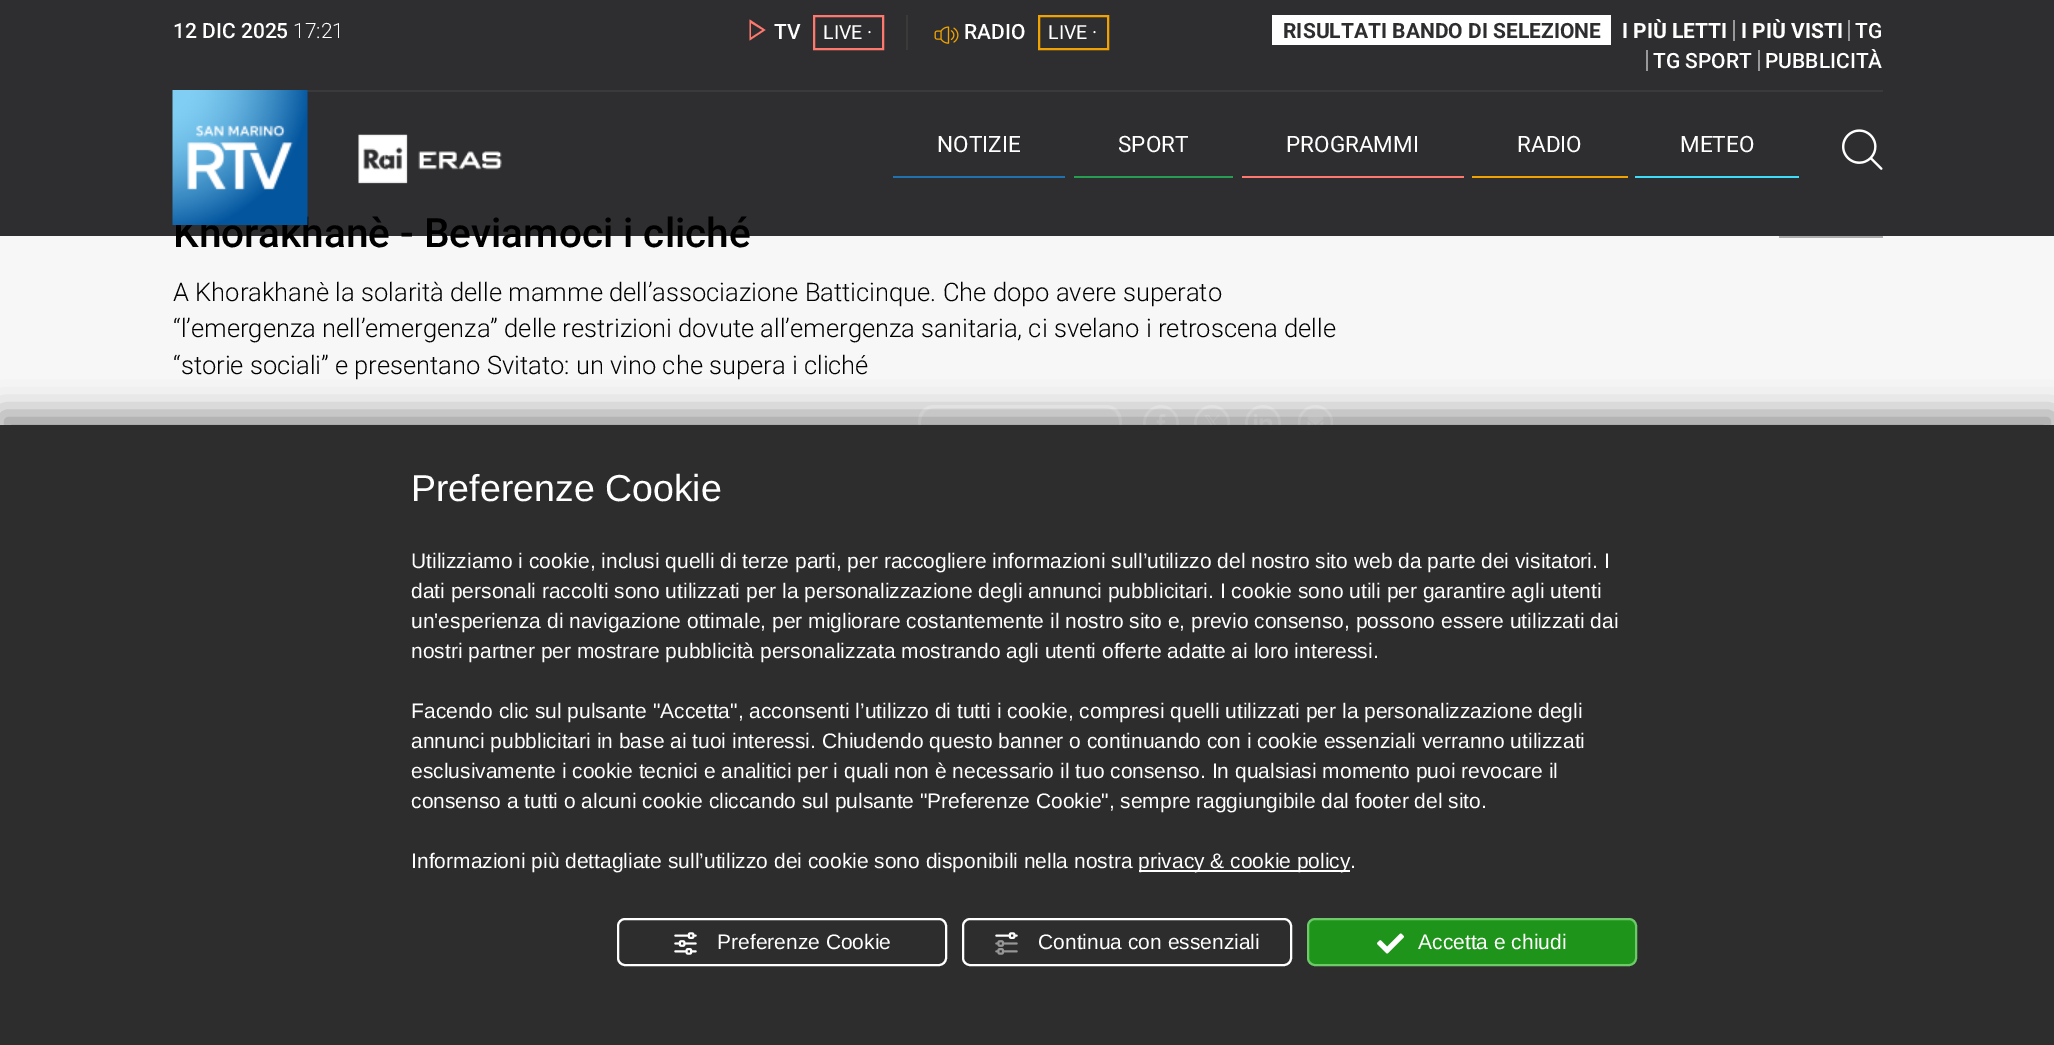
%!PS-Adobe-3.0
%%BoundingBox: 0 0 2054 1045
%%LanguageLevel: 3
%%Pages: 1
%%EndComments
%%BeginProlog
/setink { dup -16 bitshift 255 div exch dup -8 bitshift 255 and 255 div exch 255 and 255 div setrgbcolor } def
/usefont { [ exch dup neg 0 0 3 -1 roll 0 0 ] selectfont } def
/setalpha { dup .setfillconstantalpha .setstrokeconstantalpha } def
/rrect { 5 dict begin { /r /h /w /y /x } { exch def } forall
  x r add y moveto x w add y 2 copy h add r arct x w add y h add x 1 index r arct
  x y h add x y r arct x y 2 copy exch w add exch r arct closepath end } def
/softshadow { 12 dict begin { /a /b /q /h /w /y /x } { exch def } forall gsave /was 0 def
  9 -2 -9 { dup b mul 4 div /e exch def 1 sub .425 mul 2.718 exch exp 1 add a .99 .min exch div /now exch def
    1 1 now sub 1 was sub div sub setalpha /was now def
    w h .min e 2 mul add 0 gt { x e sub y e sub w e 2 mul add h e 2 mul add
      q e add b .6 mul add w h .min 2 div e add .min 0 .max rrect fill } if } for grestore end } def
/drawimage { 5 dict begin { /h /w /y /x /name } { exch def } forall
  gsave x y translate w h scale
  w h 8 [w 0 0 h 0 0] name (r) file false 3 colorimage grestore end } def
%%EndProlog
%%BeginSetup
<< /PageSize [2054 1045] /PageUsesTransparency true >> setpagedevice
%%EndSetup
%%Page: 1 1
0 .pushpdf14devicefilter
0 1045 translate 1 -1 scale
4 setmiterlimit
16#F7F7F7 setink
0 0 2054 1045 rectfill
16#2E2E30 setink
0 0 2054 236 rectfill
16#3A3A3A setink
307 90 1576 2 rectfill
/Roboto-Medium 21 usefont
16#FFFFFF setink
173 38 moveto (12 DIC 2025) show
/Roboto-Light 21 usefont
293 38 moveto (17:21) show
16#3A3A3A setink
906 15 2 35 rectfill
16#FF786D setink
751 23 moveto 762.5 30 lineto 751 37.5 lineto closepath 749.5 19.5 moveto 749.5 40.5 lineto 765.5 30 lineto closepath fill
/Roboto-Medium 21 usefont
16#FFFFFF setink
774 39 moveto (TV) show
16#FF786D setink
2 setlinewidth
814 16 69 33 rectstroke
/Roboto-Regular 19.5 usefont
16#FFFFFF setink
823 39 moveto (LIVE ·) show
(img1.raw) 934 26 25 18 drawimage
/Roboto-Medium 21 usefont
964 39 moveto (RADIO) show
16#F0A202 setink
1039 16 69 33 rectstroke
/Roboto-Regular 19.5 usefont
16#FFFFFF setink
1048 39 moveto (LIVE ·) show
1272 15 339 30 rectfill
/Roboto-Bold 21 usefont
16#2E2E30 setink
1283 38 moveto (RISULTATI BANDO DI SELEZIONE) show
16#FFFFFF setink
1622 38 moveto (I PIÙ LETTI) show
16#999999 setink
1733 20 2 21 rectfill
16#FFFFFF setink
1741 38 moveto (I PIÙ VISTI) show
16#999999 setink
1848 20 2 21 rectfill
/Roboto-Medium 21 usefont
16#FFFFFF setink
1855 38 moveto (TG) show
16#999999 setink
1646 50 2 21 rectfill
16#FFFFFF setink
1653 68 moveto (TG SPORT) show
16#999999 setink
1758 50 2 21 rectfill
16#FFFFFF setink
1765 68 moveto (PUBBLICITÀ) show
/Roboto-Medium 40.5 usefont
16#000000 setink
173 247 moveto (Khorakhanè - Beviamoci i cliché) show
(img2.raw) 172 90 136 135 drawimage
(img3.raw) 358 134 144 50 drawimage
16#2071AF setink
893 176 172 2 rectfill
/Roboto-Regular 22.5 usefont
16#FFFFFF setink
937 152 moveto (NOTIZIE) show
16#269E51 setink
1074 176 159 2 rectfill
16#FFFFFF setink
1118 152 moveto (SPORT) show
16#FF786D setink
1242 176 222 2 rectfill
16#FFFFFF setink
1286 152 moveto (PROGRAMMI) show
16#F0A202 setink
1472 176 156 2 rectfill
16#FFFFFF setink
1517 152 moveto (RADIO) show
16#3DDDFA setink
1635 176 164 2 rectfill
16#FFFFFF setink
1680 152 moveto (METEO) show
(img4.raw) 1842 129 41 41 drawimage
/Roboto-Light 25.5 usefont
16#000000 setink
[
    [(A Khorakhanè la solarità delle mamme dell’associazione Batticinque. Che dopo avere superato) 173 301]
    [(“l’emergenza nell’emergenza” delle restrizioni dovute all’emergenza sanitaria, ci svelano i retroscena delle) 173 337]
    [(“storie sociali” e presentano Svitato: un vino che supera i cliché) 173 374]
] { aload pop moveto show } forall
16#FFFFFF setink
934 405 moveto 1011 405 lineto 1011 441 lineto 934 441 lineto 925 441 918 434 918 424 curveto 918 422 lineto 918 412 925 405 934 405 curveto closepath 934 408 moveto 1011 408 lineto 1011 438 lineto 934 438 lineto 927 438 921 432 921 424 curveto 921 422 lineto 921 414 927 408 934 408 curveto closepath eofill
1011 405 moveto 1106 405 lineto 1115 405 1122 412 1122 422 curveto 1122 424 lineto 1122 434 1115 441 1106 441 curveto 1011 441 lineto closepath 1011 408 moveto 1106 408 lineto 1113 408 1119 414 1119 422 curveto 1119 424 lineto 1119 432 1113 438 1106 438 curveto 1011 438 lineto closepath eofill
(img5.raw) 1143 405 36 20 drawimage
(img6.raw) 1194 405 36 20 drawimage
(img7.raw) 1245 405 36 20 drawimage
(img8.raw) 1298 405 35 20 drawimage
16#ADADAD setink
1779 236 104 2 rectfill
16#000000 setink
0 413 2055 621 0 15 0.38 softshadow
16#2D2D2D setink
0 425 2054 620 rectfill
/LiberationSans-Regular 37.5 usefont
16#FFFFFF setink
411 501 moveto (Preferenze Cookie) show
/LiberationSans-Regular 21 usefont
[
    [(Utilizziamo i cookie, inclusi quelli di terze parti, per raccogliere informazioni sull’utilizzo del nostro sito web da parte dei visitatori. I) 411 568]
    [(dati personali raccolti sono utilizzati per la personalizzazione degli annunci pubblicitari. I cookie sono utili per garantire agli utenti) 411 598]
    [(un'esperienza di navigazione ottimale, per migliorare costantemente il nostro sito e, previo consenso, possono essere utilizzati dai) 411 628]
    [(nostri partner per mostrare pubblicità personalizzata mostrando agli utenti offerte adatte ai loro interessi.) 411 658]
    [(Facendo clic sul pulsante "Accetta", acconsenti l’utilizzo di tutti i cookie, compresi quelli utilizzati per la personalizzazione degli) 411 718]
    [(annunci pubblicitari in base ai tuoi interessi. Chiudendo questo banner o continuando con i cookie essenziali verranno utilizzati) 411 748]
    [(esclusivamente i cookie tecnici e analitici per i quali non è necessario il tuo consenso. In qualsiasi momento puoi revocare il) 411 778]
    [(consenso a tutti o alcuni cookie cliccando sul pulsante "Preferenze Cookie", sempre raggiungibile dal footer del sito.) 411 808]
    [(Informazioni più dettagliate sull’utilizzo dei cookie sono disponibili nella nostra) 411 868]
] { aload pop moveto show } forall
1139 870 211 2 rectfill
1138 868 moveto (privacy & cookie policy.) show
618 919 328 46 7 rrect stroke
(img9.raw) 674 932 23 23 drawimage
717 949 moveto (Preferenze Cookie) show
963 919 328 46 7 rrect stroke
(img10.raw) 995 932 23 23 drawimage
1038 949 moveto (Continua con essenziali) show
16#1E941A setink
1308 919 328 46 7 rrect gsave fill grestore
16#6CCA69 setink
stroke
(img11.raw) 1377 933 27 21 drawimage
16#FFFFFF setink
1418 949 moveto (Accetta e chiudi) show
.poppdf14devicefilter showpage
%%EOF
